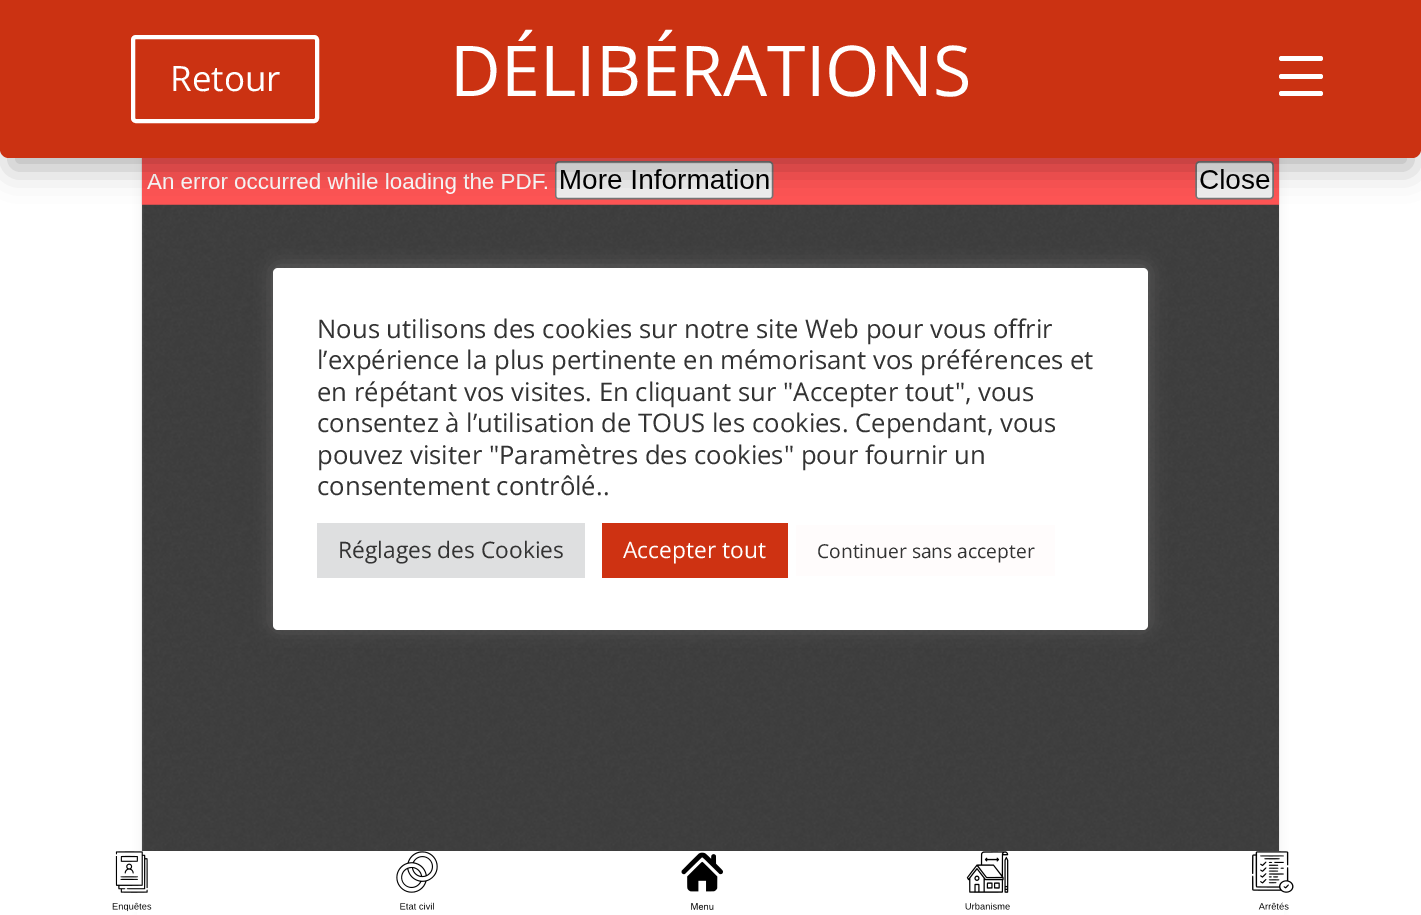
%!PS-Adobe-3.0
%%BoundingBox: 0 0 1421 915
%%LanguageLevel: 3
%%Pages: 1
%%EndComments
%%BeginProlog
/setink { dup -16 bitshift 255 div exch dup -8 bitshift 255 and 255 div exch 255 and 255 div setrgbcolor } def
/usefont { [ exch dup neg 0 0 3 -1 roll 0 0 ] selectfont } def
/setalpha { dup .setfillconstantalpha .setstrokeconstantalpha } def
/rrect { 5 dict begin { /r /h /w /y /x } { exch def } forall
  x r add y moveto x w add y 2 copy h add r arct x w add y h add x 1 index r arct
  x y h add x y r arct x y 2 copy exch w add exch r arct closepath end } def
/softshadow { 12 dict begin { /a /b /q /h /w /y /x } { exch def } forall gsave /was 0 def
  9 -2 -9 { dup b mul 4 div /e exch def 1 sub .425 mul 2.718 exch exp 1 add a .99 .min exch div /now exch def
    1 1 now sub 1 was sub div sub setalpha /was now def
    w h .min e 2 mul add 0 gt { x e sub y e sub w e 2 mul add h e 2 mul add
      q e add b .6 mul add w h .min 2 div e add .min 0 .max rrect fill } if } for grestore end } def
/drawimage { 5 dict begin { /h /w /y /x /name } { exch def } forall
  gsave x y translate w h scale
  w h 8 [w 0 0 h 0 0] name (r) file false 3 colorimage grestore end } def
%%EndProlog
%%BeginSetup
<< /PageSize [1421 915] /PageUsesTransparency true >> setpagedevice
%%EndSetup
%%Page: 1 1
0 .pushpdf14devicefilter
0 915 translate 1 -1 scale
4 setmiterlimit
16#FFFFFF setink
0 0 1421 915 rectfill
16#EEEEEE setink
142 96 1137 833 0 4.5 1 softshadow
16#FFFFFF setink
137 149 1147 9 rectfill
(img6.raw) 141 158 1139 693 drawimage
16#000000 setink
11 32 1400 136 0 16 0.3 softshadow
16#CB3212 setink
0 0 moveto 1421 0 lineto 1421 149 lineto 1421 154 1417 158 1412 158 curveto 9 158 lineto 4 158 0 154 0 149 curveto closepath fill
16#FFFFFF setink
4 setlinewidth
133 37 184 84 3 rrect stroke
/OpenSans-Regular 35 usefont
170 91 moveto (Retour) show
/OpenSans-Regular 70 usefont
450 96 moveto (DÉLIBÉRATIONS) show
137 851 1147 64 rectfill
(img1.raw) 112 851 40 61 drawimage
(img2.raw) 396 851 42 59 drawimage
(img3.raw) 681 852 42 58 drawimage
(img4.raw) 965 851 45 59 drawimage
(img5.raw) 1252 851 42 59 drawimage
1279 74 44 5 2.5 rrect fill
1279 56 44 5 2.5 rrect fill
1279 91 44 5 2.5 rrect fill
16#ACABAB setink
273 266 875 362 5 9 0.3 softshadow
16#FFFFFF setink
273 268 875 362 5 rrect fill
/OpenSans-Regular 25.7 usefont
16#333333 setink
[
    [(Nous utilisons des cookies sur notre site Web pour vous offrir) 317 338]
    [(l’expérience la plus pertinente en mémorisant vos préférences et) 317 369]
    [(en répétant vos visites. En cliquant sur "Accepter tout", vous) 317 401]
    [(consentez à l’utilisation de TOUS les cookies. Cependant, vous) 317 432]
    [(pouvez visiter "Paramètres des cookies" pour fournir un) 317 464]
    [(consentement contrôlé..) 317 495]
] { aload pop moveto show } forall
16#DEDFE0 setink
317 523 268 55 rectfill
/OpenSans-Regular 22.75 usefont
16#333333 setink
338 558 moveto (Réglages des Cookies) show
16#CE3212 setink
602 523 186 55 rectfill
16#FFFFFF setink
623 558 moveto (Accepter tout) show
16#FFFCFC setink
796 525 259 51 rectfill
/OpenSans-Regular 19.25 usefont
16#333333 setink
817 558 moveto (Continuer sans accepter) show
.poppdf14devicefilter showpage
%%EOF
